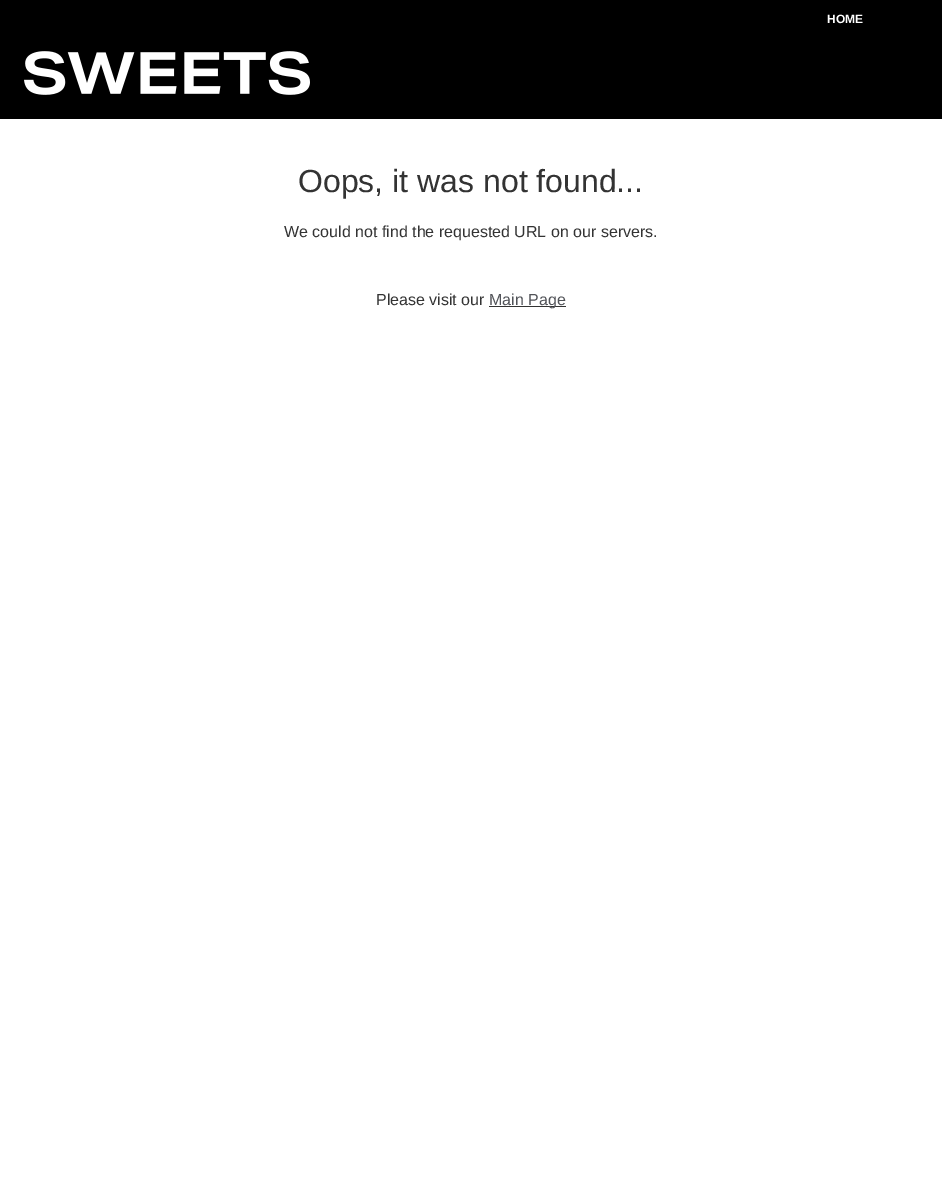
%!PS-Adobe-3.0
%%BoundingBox: 0 0 942 1190
%%LanguageLevel: 3
%%Pages: 1
%%EndComments
%%BeginProlog
/setink { dup -16 bitshift 255 div exch dup -8 bitshift 255 and 255 div exch 255 and 255 div setrgbcolor } def
/usefont { [ exch dup neg 0 0 3 -1 roll 0 0 ] selectfont } def
/drawimage { 5 dict begin { /h /w /y /x /name } { exch def } forall
  gsave x y translate w h scale
  w h 8 [w 0 0 h 0 0] name (r) file false 3 colorimage grestore end } def
%%EndProlog
%%BeginSetup
<< /PageSize [942 1190] >> setpagedevice
%%EndSetup
%%Page: 1 1
0 1190 translate 1 -1 scale
4 setmiterlimit
16#FFFFFF setink
0 0 942 1190 rectfill
16#000000 setink
0 0 942 119 rectfill
/LiberationSans-Bold 12 usefont
16#FFFFFF setink
827 23 moveto (HOME) show
(img1.raw) 24 51 286 44 drawimage
/LiberationSans-Regular 32 usefont
16#333333 setink
298 192 moveto (Oops, it was not found...) show
/LiberationSans-Regular 16 usefont
284 237 moveto (We could not find the requested URL on our servers.) show
376 305 moveto (Please visit our) show
489 306 77 1 rectfill
16#515358 setink
489 305 moveto (Main Page) show
showpage
%%EOF
